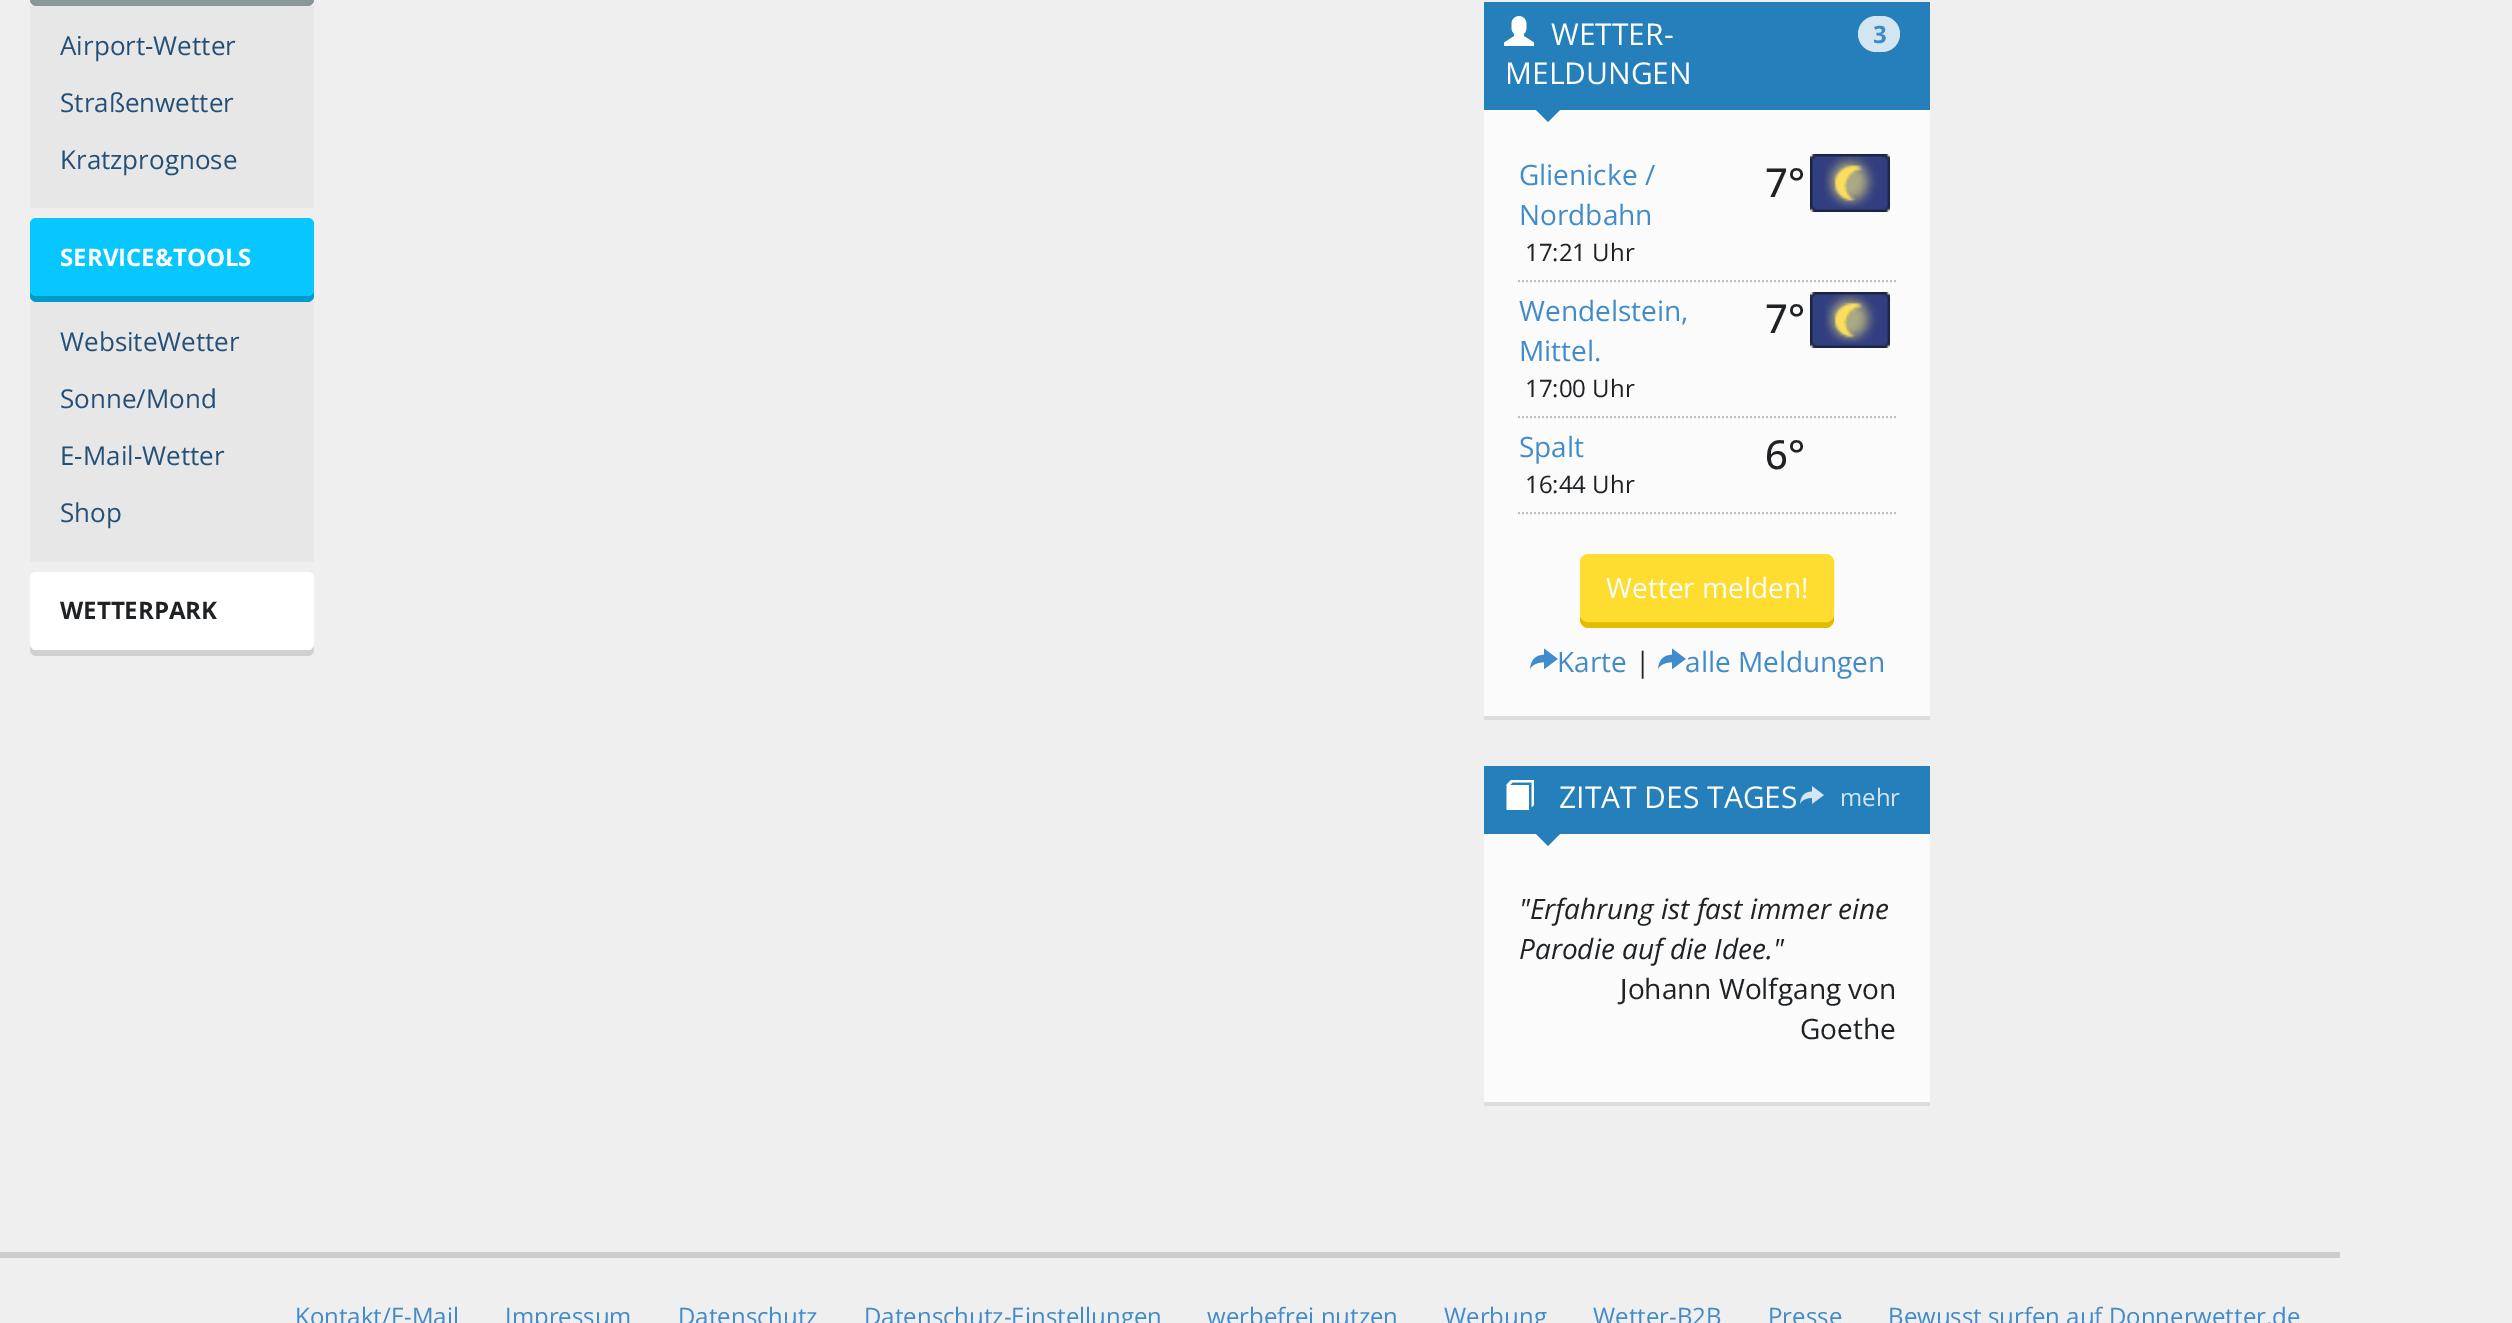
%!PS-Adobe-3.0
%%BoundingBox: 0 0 2512 1323
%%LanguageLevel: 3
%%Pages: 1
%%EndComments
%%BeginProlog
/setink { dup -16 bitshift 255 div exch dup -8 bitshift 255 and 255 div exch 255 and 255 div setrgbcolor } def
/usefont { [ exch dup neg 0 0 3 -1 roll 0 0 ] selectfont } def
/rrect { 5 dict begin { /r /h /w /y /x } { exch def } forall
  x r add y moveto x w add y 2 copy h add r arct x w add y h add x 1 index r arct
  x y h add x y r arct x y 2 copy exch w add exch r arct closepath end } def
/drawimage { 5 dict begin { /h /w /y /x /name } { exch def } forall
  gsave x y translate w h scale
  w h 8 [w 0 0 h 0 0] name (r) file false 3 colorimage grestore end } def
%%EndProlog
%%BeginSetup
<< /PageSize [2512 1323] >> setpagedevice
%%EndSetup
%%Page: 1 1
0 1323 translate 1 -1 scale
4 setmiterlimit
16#EFEFEF setink
0 0 2512 1323 rectfill
16#899999 setink
30 -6 moveto 30 0 lineto 30 3 33 6 36 6 curveto 308 6 lineto 311 6 314 3 314 0 curveto 314 -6 lineto 314 -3 311 0 308 0 curveto 36 0 lineto 33 0 30 -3 30 -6 curveto closepath fill
16#E7E7E7 setink
30 6 284 202 rectfill
/OpenSans-Regular 26 usefont
16#245078 setink
[
    [(Airport-Wetter) 60 55]
    [(Straßenwetter) 60 112]
    [(Kratzprognose) 60 169]
] { aload pop moveto show } forall
16#009BCA setink
30 290 moveto 30 296 lineto 30 299 33 302 36 302 curveto 308 302 lineto 311 302 314 299 314 296 curveto 314 290 lineto 314 293 311 296 308 296 curveto 36 296 lineto 33 296 30 293 30 290 curveto closepath fill
16#08C6FF setink
30 218 284 78 6 rrect fill
/OpenSans-Bold 24 usefont
16#FFFFFF setink
60 266 moveto (SERVICE&TOOLS) show
16#E7E7E7 setink
30 302 284 260 rectfill
/OpenSans-Regular 26 usefont
16#245078 setink
[
    [(WebsiteWetter) 60 351]
    [(Sonne/Mond) 60 408]
    [(E-Mail-Wetter) 60 465]
    [(Shop) 60 522]
] { aload pop moveto show } forall
16#D1D1D1 setink
30 644 moveto 30 650 lineto 30 653 33 656 36 656 curveto 308 656 lineto 311 656 314 653 314 650 curveto 314 644 lineto 314 647 311 650 308 650 curveto 36 650 lineto 33 650 30 647 30 644 curveto closepath fill
16#FFFFFF setink
30 572 284 78 6 rrect fill
/OpenSans-Bold 24 usefont
16#1F2225 setink
60 619 moveto (WETTERPARK) show
16#257FBA setink
1484 2 446 108 rectfill
(img1.raw) 1504 16 30 30 drawimage
/OpenSans-Regular 30 usefont
16#FFFFFF setink
1551 45 moveto (WETTER-) show
1505 84 moveto (MELDUNGEN) show
16#FBFBFB setink
1484 110 446 606 rectfill
16#257FBA setink
1534 108 moveto 1562 108 lineto 1548 122 lineto closepath fill
16#D3E5F1 setink
1858 16 42 36 18 rrect fill
/OpenSans-Bold 24 usefont
16#3C89C7 setink
1873 43 moveto (3) show
16#DDDDDD setink
1484 716 446 4 rectfill
16#C0BFBF setink
2 setlinewidth
[2 2] 0 setdash
1518 281 moveto 1896 281 lineto stroke
/OpenSans-Regular 28 usefont
16#428BCA setink
1519 185 moveto (Glienicke /) show
1519 225 moveto (Nordbahn) show
/OpenSans-Regular 24 usefont
16#1F2225 setink
1525 261 moveto (17:21 Uhr) show
/OpenSans-Medium 40 usefont
1765 197 moveto (7°) show
(img2.raw) 1810 154 80 58 drawimage
16#C0BFBF setink
1518 417 moveto 1896 417 lineto stroke
/OpenSans-Regular 28 usefont
16#428BCA setink
1519 321 moveto (Wendelstein,) show
1519 361 moveto (Mittel.) show
/OpenSans-Regular 24 usefont
16#1F2225 setink
1525 397 moveto (17:00 Uhr) show
/OpenSans-Medium 40 usefont
1765 333 moveto (7°) show
(img3.raw) 1810 292 80 56 drawimage
16#C0BFBF setink
1518 513 moveto 1896 513 lineto stroke
/OpenSans-Regular 28 usefont
16#428BCA setink
1519 457 moveto (Spalt) show
/OpenSans-Regular 24 usefont
16#1F2225 setink
1525 493 moveto (16:44 Uhr) show
/OpenSans-Medium 40 usefont
1765 469 moveto (6°) show
16#E3BC00 setink
1580 614 moveto 1580 620 lineto 1580 624 1584 628 1588 628 curveto 1826 628 lineto 1830 628 1834 624 1834 620 curveto 1834 614 lineto 1834 618 1830 622 1826 622 curveto 1588 622 lineto 1584 622 1580 618 1580 614 curveto closepath fill
16#FFDC30 setink
1581 555 252 66 7 rrect gsave fill grestore
[] 0 setdash
stroke
/OpenSans-Regular 28 usefont
16#FFFFFF setink
1606 598 moveto (Wetter melden!) show
(img4.raw) 1530 648 28 22 drawimage
16#428BCA setink
1557 672 moveto (Karte) show
16#1F2225 setink
1635 672 moveto (|) show
(img4.raw) 1658 648 28 22 drawimage
16#428BCA setink
1685 672 moveto (alle Meldungen) show
16#257FBA setink
1484 766 446 68 rectfill
(img5.raw) 1506 780 28 30 drawimage
/OpenSans-Regular 30 usefont
16#FFFFFF setink
1559 808 moveto (ZITAT DES TAGES) show
16#FBFBFB setink
1484 834 446 268 rectfill
16#257FBA setink
1534 832 moveto 1562 832 lineto 1548 846 lineto closepath fill
(img6.raw) 1800 786 24 18 drawimage
/OpenSans-Regular 24 usefont
16#D3E5F1 setink
1840 806 moveto (mehr) show
16#DDDDDD setink
1484 1102 446 4 rectfill
/OpenSans-Italic 28 usefont
16#1F2225 setink
1519 919 moveto ("Erfahrung ist fast immer eine) show
1519 959 moveto (Parodie auf die Idee.") show
/OpenSans-Regular 28 usefont
1620 999 moveto (Johann Wolfgang von) show
1800 1039 moveto (Goethe) show
16#CCCCCC setink
0 1252 2340 6 rectfill
/OpenSans-Regular 24 usefont
16#428BCA setink
[
    [(Kontakt/E-Mail) 295 1325]
    [(Impressum) 505 1325]
    [(Datenschutz) 678 1325]
    [(Datenschutz-Einstellungen) 864 1325]
    [(werbefrei nutzen) 1207 1325]
    [(Werbung) 1444 1325]
    [(Wetter-B2B) 1593 1325]
    [(Presse) 1768 1325]
    [(Bewusst surfen auf Donnerwetter.de) 1888 1325]
] { aload pop moveto show } forall
showpage
%%EOF
